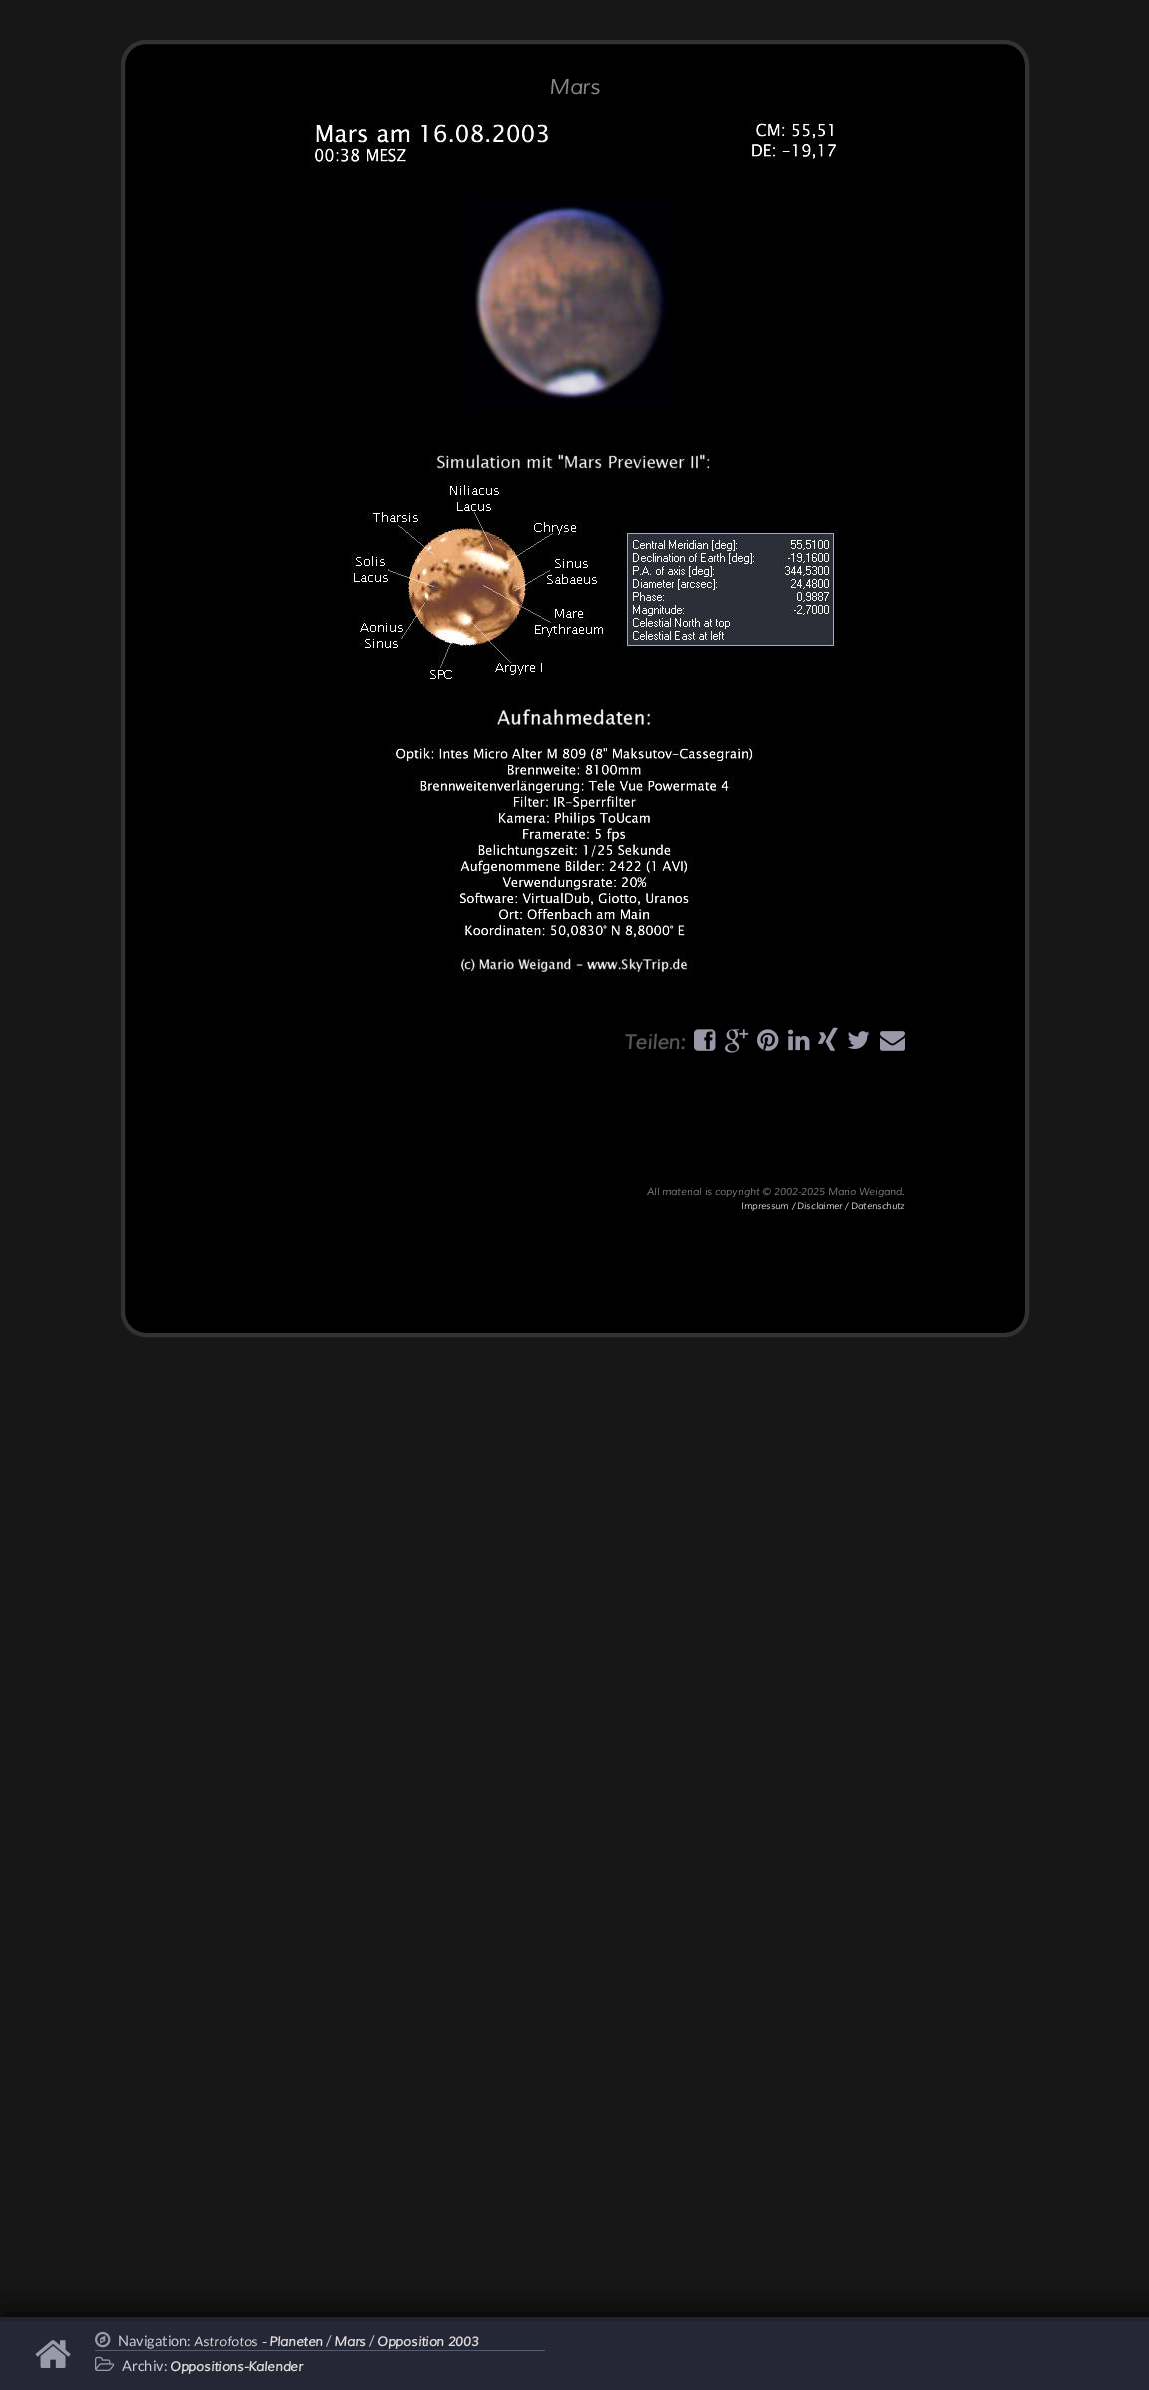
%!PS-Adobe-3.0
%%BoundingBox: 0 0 1149 2390
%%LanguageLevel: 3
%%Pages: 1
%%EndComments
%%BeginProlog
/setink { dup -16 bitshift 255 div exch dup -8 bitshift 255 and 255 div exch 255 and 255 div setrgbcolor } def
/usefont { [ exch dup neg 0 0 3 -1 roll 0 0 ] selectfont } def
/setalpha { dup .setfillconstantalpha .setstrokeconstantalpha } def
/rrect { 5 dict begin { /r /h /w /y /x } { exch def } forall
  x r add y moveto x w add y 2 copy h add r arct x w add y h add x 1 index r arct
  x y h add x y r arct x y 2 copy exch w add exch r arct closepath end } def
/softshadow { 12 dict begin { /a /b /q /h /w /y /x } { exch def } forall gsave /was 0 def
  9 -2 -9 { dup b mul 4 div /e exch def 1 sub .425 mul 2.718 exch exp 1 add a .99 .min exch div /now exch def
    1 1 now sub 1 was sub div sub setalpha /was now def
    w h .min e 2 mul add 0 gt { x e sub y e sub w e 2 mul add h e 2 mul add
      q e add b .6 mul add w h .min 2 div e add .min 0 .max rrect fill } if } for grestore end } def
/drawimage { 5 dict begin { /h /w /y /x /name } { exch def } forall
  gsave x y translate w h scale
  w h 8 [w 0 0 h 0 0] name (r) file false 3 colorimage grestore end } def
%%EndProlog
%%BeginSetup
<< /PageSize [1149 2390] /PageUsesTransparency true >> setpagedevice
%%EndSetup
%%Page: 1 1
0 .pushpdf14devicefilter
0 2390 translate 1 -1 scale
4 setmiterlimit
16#171717 setink
0 0 1149 2390 rectfill
16#000000 setink
123 42 904 1293 23 rrect gsave fill grestore
16#323232 setink
4 setlinewidth
stroke
/Muli-Italic 21 usefont
16#888888 setink
549 94 moveto (Mars) show
(img1.raw) 310 120 528 856 drawimage
/Muli-BoldItalic 20 usefont
16#555555 setink
624 1049 moveto (Teilen:) show
(img2.raw) 694 1029 22 22 drawimage
(img3.raw) 725 1029 24 24 drawimage
(img4.raw) 757 1029 22 22 drawimage
(img5.raw) 788 1029 22 22 drawimage
(img6.raw) 818 1027 20 24 drawimage
(img7.raw) 847 1031 23 18 drawimage
(img8.raw) 880 1031 25 20 drawimage
/Muli-Italic 10.1 usefont
16#7C7C84 setink
647 1195 moveto (All material is copyright © 2002-2025 Mario Weigand.) show
/Muli-Italic 9.1 usefont
16#DDDDDD setink
741 1209 moveto (Impressum / Disclaimer / Datenschutz) show
16#000000 setink
0 2317 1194 73 0 19 1 softshadow
16#252736 setink
0 2321 1149 69 rectfill
16#21222D setink
0 2317 1149 4 rectfill
(img9.raw) 35 2340 36 28 drawimage
16#545D6E setink
95 2350 450 1 rectfill
(img10.raw) 95 2331 16 17 drawimage
/Lato-Regular 14.5 usefont
16#CCCCD4 setink
118 2346 moveto (Navigation:) show
/Muli-Italic 13 usefont
16#DDDDDD setink
194 2346 moveto (Astrofotos -) show
/Muli-BoldItalic 13 usefont
269 2346 moveto (Planeten) show
/Lato-Regular 14.5 usefont
16#CCCCD4 setink
326 2346 moveto (/) show
/Muli-BoldItalic 13 usefont
16#DDDDDD setink
334 2346 moveto (Mars) show
/Lato-Regular 14.5 usefont
16#CCCCD4 setink
369 2346 moveto (/) show
/Muli-BoldItalic 13 usefont
16#DDDDDD setink
377 2346 moveto (Opposition 2003) show
(img11.raw) 95 2356 20 15 drawimage
/Lato-Regular 14.5 usefont
16#CCCCD4 setink
122 2371 moveto (Archiv:) show
/Muli-BoldItalic 13 usefont
16#DDDDDD setink
170 2371 moveto (Oppositions-Kalender) show
.poppdf14devicefilter showpage
%%EOF
